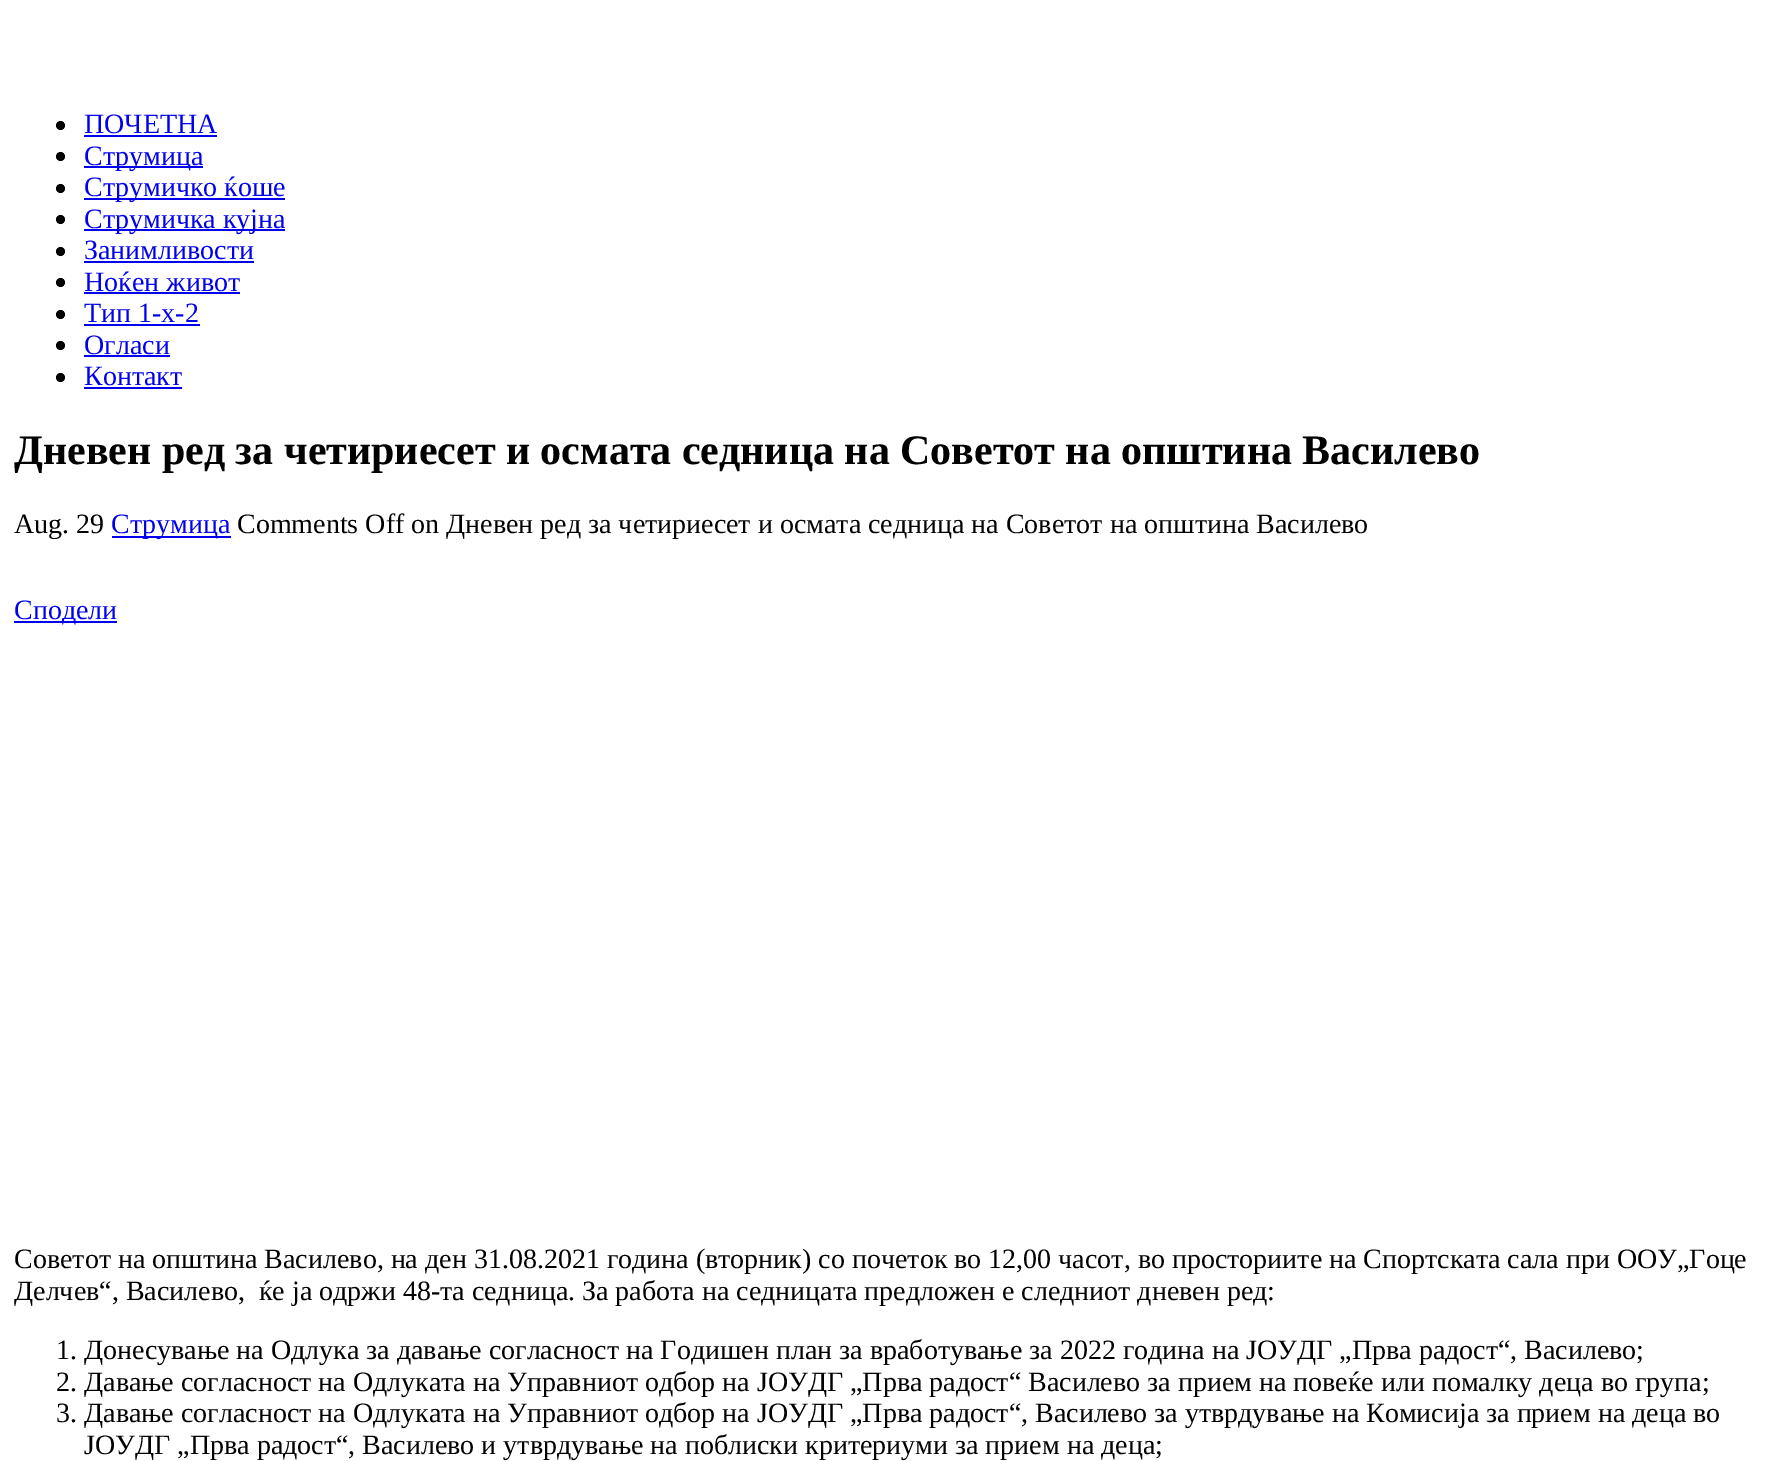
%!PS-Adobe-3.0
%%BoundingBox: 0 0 1784 1461
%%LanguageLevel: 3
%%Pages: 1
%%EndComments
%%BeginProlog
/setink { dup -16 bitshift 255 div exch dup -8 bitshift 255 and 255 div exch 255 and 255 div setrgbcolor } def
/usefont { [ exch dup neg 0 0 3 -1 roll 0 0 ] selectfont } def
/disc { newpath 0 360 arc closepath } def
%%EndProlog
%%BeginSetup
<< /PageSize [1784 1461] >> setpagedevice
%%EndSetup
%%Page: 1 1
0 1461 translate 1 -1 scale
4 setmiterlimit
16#FFFFFF setink
0 0 1784 1461 rectfill
16#000000 setink
60.5 125.5 4.5 disc fill
/LiberationSerif-Regular 28 usefont
16#0000EE setink
84 133 moveto (ПОЧЕТНА) show
84 135 133 2 rectfill
16#000000 setink
60.5 156.5 4.5 disc fill
16#0000EE setink
84 166 119 2 rectfill
84 165 moveto (Струмица) show
16#000000 setink
60.5 188.5 4.5 disc fill
16#0000EE setink
84 198 201 2 rectfill
84 196 moveto (Струмичко ќоше) show
16#000000 setink
60.5 219.5 4.5 disc fill
16#0000EE setink
84 229 201 2 rectfill
84 228 moveto (Струмичка кујна) show
16#000000 setink
60.5 251.5 4.5 disc fill
16#0000EE setink
84 259 moveto (Занимливости) show
84 261 170 2 rectfill
16#000000 setink
60.5 282.5 4.5 disc fill
16#0000EE setink
84 291 moveto (Ноќен живот) show
84 292 156 2 rectfill
16#000000 setink
60.5 314.5 4.5 disc fill
16#0000EE setink
84 322 moveto (Тип 1-х-2) show
84 324 116 2 rectfill
16#000000 setink
60.5 345.5 4.5 disc fill
16#0000EE setink
84 354 moveto (Огласи) show
84 355 86 2 rectfill
16#000000 setink
60.5 377.5 4.5 disc fill
16#0000EE setink
84 385 moveto (Контакт) show
84 387 98 2 rectfill
/LiberationSerif-Bold 42 usefont
16#000000 setink
14 464 moveto (Дневен ред за четириесет и осмата седница на Советот на општина Василево) show
/LiberationSerif-Regular 28 usefont
14 533 moveto (Aug. 29) show
16#0000EE setink
112 536 119 2 rectfill
111 533 moveto (Струмица) show
16#000000 setink
237 533 moveto (Comments Off on Дневен ред за четириесет и осмата седница на Советот на општина Василево) show
16#0000EE setink
14 621 103 2 rectfill
14 619 moveto (Сподели) show
16#000000 setink
[
    [(Советот на општина Василево, на ден 31.08.2021 година \(вторник\) со почеток во 12,00 часот, во просториите на Спортската сала при ООУ„Гоце) 14 1268]
    [(Делчев“, Василево,  ќе ја одржи 48-та седница. За работа на седницата предложен е следниот дневен ред:) 14 1300]
    [(1. Донесување на Одлука за давање согласност на Годишен план за вработување за 2022 година на ЈОУДГ „Прва радост“, Василево;) 56 1359]
    [(2. Давање согласност на Одлуката на Управниот одбор на ЈОУДГ „Прва радост“ Василево за прием на повеќе или помалку деца во група;) 56 1391]
    [(3. Давање согласност на Одлуката на Управниот одбор на ЈОУДГ „Прва радост“, Василево за утврдување на Комисија за прием на деца во) 56 1422]
    [(ЈОУДГ „Прва радост“, Василево и утврдување на поблиски критериуми за прием на деца;) 84 1454]
] { aload pop moveto show } forall
showpage
%%EOF
